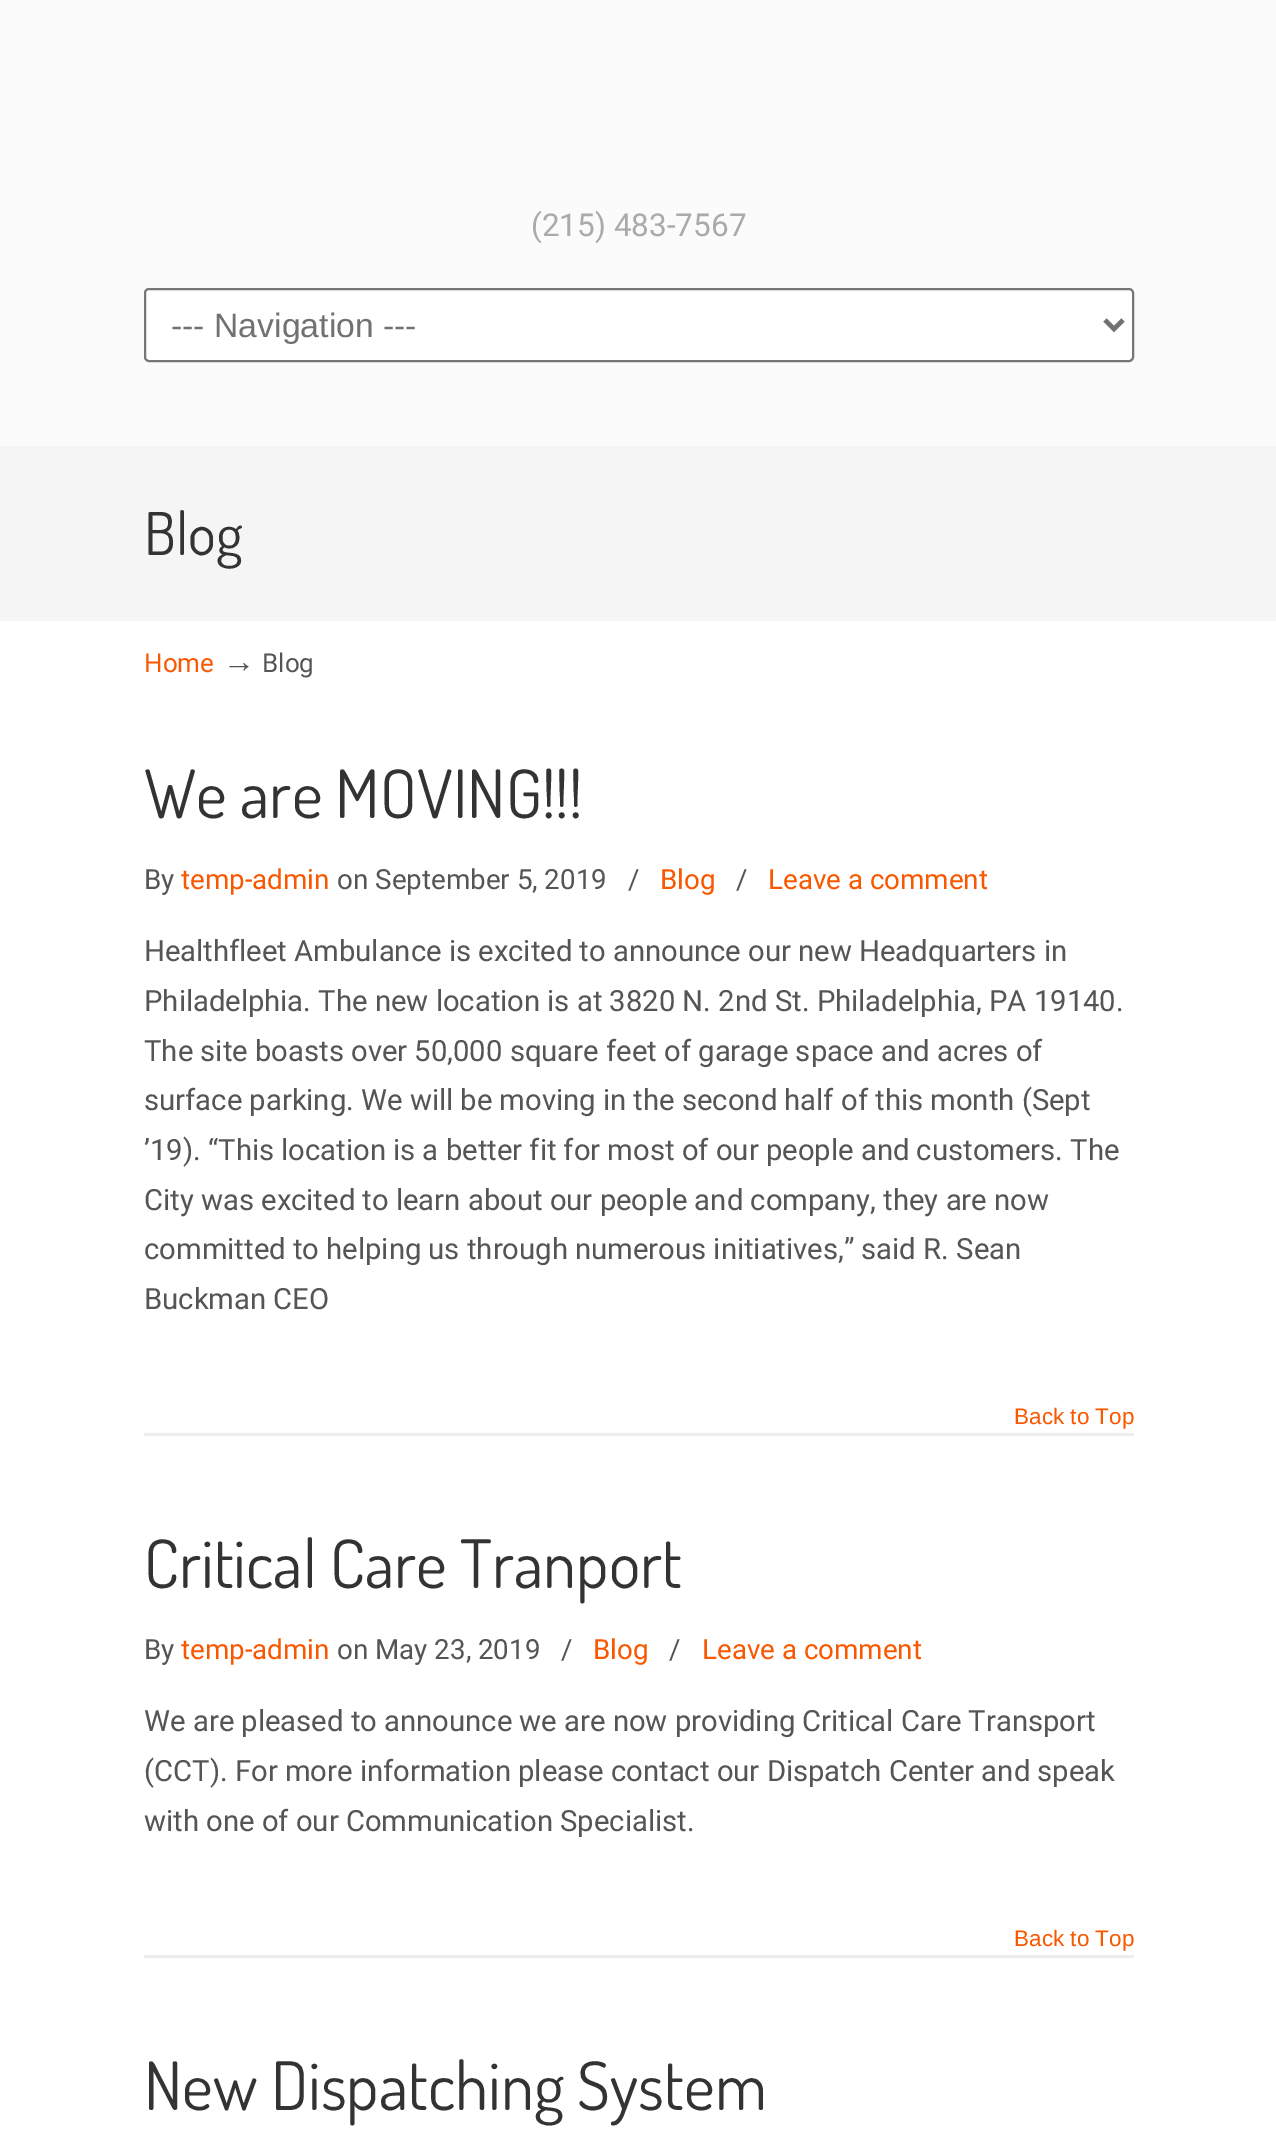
%!PS-Adobe-3.0
%%BoundingBox: 0 0 1276 2156
%%LanguageLevel: 3
%%Pages: 1
%%EndComments
%%BeginProlog
/setink { dup -16 bitshift 255 div exch dup -8 bitshift 255 and 255 div exch 255 and 255 div setrgbcolor } def
/usefont { [ exch dup neg 0 0 3 -1 roll 0 0 ] selectfont } def
/rrect { 5 dict begin { /r /h /w /y /x } { exch def } forall
  x r add y moveto x w add y 2 copy h add r arct x w add y h add x 1 index r arct
  x y h add x y r arct x y 2 copy exch w add exch r arct closepath end } def
%%EndProlog
%%BeginSetup
<< /PageSize [1276 2156] >> setpagedevice
%%EndSetup
%%Page: 1 1
0 2156 translate 1 -1 scale
4 setmiterlimit
16#FBFBFB setink
0 0 1276 2156 rectfill
/Roboto-Regular 31.5 usefont
16#AAAAAA setink
531 236 moveto (\(215\) 483-7567) show
16#FFFFFF setink
145 289 988 72 4 rrect gsave fill grestore
16#767676 setink
2 setlinewidth
stroke
16#717171 setink
4.5 setlinewidth
1105 320 moveto 1114 329 lineto 1123 320 lineto stroke
/LiberationSans-Regular 33.75 usefont
171 337 moveto (--- Navigation ---) show
16#F5F5F5 setink
0 446 1276 175 rectfill
/Dosis-Regular 59 usefont
16#333333 setink
144 555 moveto (Blog) show
16#FFFFFF setink
0 621 1276 1535 rectfill
/Roboto-Regular 26 usefont
16#F95700 setink
144 672 moveto (Home) show
/LiberationSerif-Regular 32 usefont
16#555555 setink
223 672 moveto (→) show
/Roboto-Regular 26 usefont
262 672 moveto (Blog) show
/Dosis-Regular 66.75 usefont
16#333333 setink
144 818 moveto (We are MOVING!!!) show
/Roboto-Regular 27.75 usefont
16#555555 setink
144 889 moveto (By) show
16#F95700 setink
181 889 moveto (temp-admin) show
16#555555 setink
337 889 moveto (on September 5, 2019) show
628 889 moveto (/) show
16#F95700 setink
660 889 moveto (Blog) show
16#555555 setink
736 889 moveto (/) show
16#F95700 setink
768 889 moveto (Leave a comment) show
/Roboto-Regular 29.25 usefont
16#555555 setink
[
    [(Healthfleet Ambulance is excited to announce our new Headquarters in) 144 961]
    [(Philadelphia. The new location is at 3820 N. 2nd St. Philadelphia, PA 19140.) 144 1011]
    [(The site boasts over 50,000 square feet of garage space and acres of) 144 1061]
    [(surface parking. We will be moving in the second half of this month \(Sept) 144 1110]
    [(’19\). “This location is a better fit for most of our people and customers. The) 144 1160]
    [(City was excited to learn about our people and company, they are now) 144 1210]
    [(committed to helping us through numerous initiatives,” said R. Sean) 144 1259]
    [(Buckman CEO) 144 1309]
] { aload pop moveto show } forall
16#EDEDED setink
144 1433 990 3 rectfill
/LiberationSans-Regular 22.5 usefont
16#F95700 setink
1014 1424 moveto (Back to Top) show
/Dosis-Regular 66.75 usefont
16#333333 setink
144 1588 moveto (Critical Care Tranport) show
/Roboto-Regular 27.75 usefont
16#555555 setink
144 1659 moveto (By) show
16#F95700 setink
181 1659 moveto (temp-admin) show
16#555555 setink
337 1659 moveto (on May 23, 2019) show
561 1659 moveto (/) show
16#F95700 setink
593 1659 moveto (Blog) show
16#555555 setink
669 1659 moveto (/) show
16#F95700 setink
702 1659 moveto (Leave a comment) show
/Roboto-Regular 29.25 usefont
16#555555 setink
[
    [(We are pleased to announce we are now providing Critical Care Transport) 144 1731]
    [(\(CCT\). For more information please contact our Dispatch Center and speak) 144 1781]
    [(with one of our Communication Specialist.) 144 1831]
] { aload pop moveto show } forall
16#EDEDED setink
144 1955 990 3 rectfill
/LiberationSans-Regular 22.5 usefont
16#F95700 setink
1014 1946 moveto (Back to Top) show
/Dosis-Regular 66.75 usefont
16#333333 setink
144 2110 moveto (New Dispatching System) show
showpage
%%EOF
